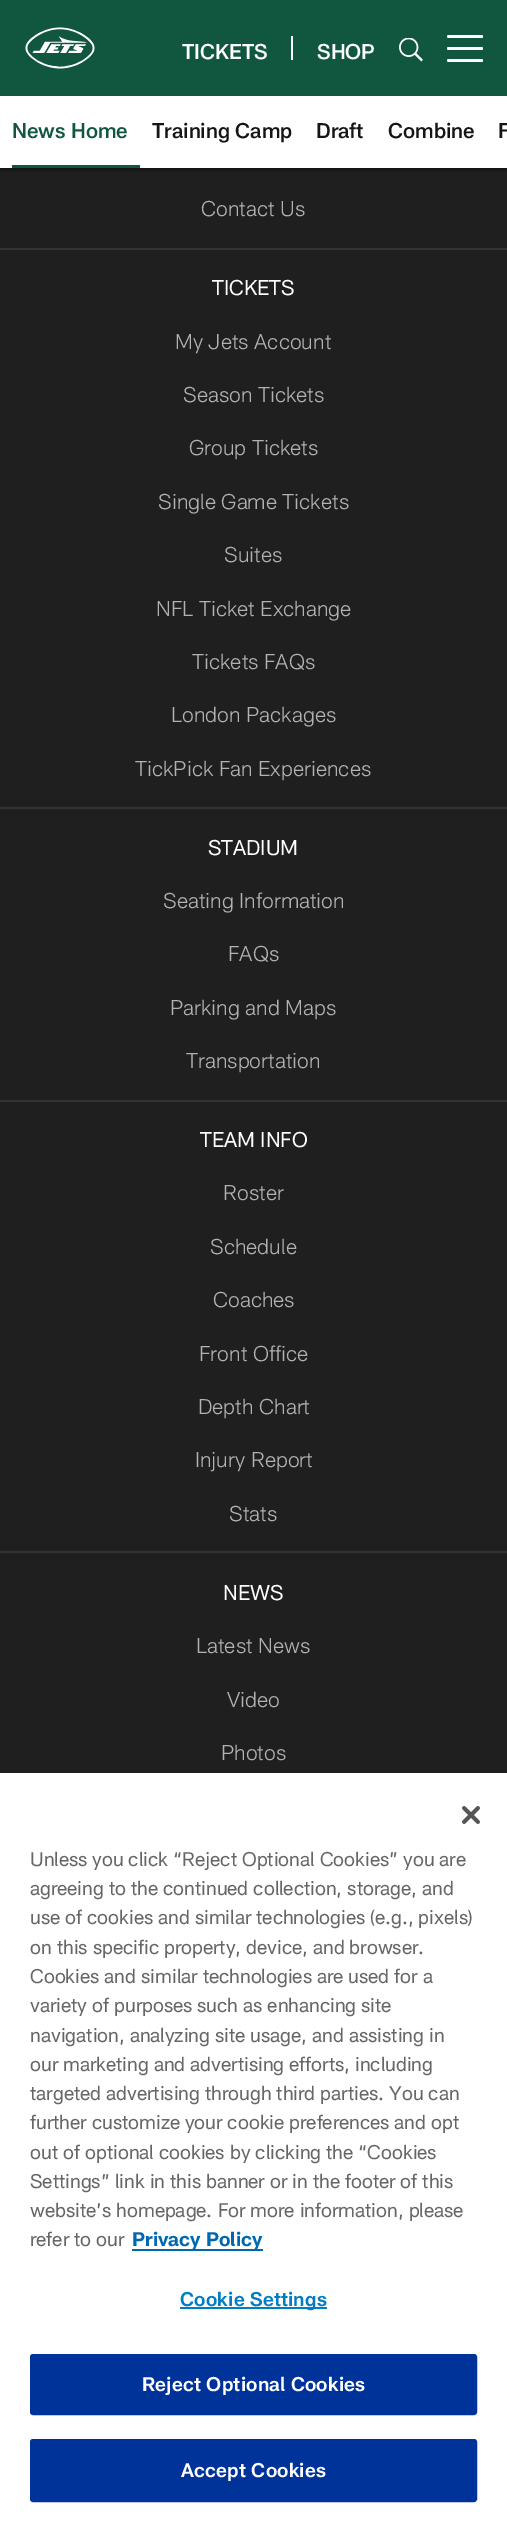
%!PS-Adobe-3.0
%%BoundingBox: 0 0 507 2525
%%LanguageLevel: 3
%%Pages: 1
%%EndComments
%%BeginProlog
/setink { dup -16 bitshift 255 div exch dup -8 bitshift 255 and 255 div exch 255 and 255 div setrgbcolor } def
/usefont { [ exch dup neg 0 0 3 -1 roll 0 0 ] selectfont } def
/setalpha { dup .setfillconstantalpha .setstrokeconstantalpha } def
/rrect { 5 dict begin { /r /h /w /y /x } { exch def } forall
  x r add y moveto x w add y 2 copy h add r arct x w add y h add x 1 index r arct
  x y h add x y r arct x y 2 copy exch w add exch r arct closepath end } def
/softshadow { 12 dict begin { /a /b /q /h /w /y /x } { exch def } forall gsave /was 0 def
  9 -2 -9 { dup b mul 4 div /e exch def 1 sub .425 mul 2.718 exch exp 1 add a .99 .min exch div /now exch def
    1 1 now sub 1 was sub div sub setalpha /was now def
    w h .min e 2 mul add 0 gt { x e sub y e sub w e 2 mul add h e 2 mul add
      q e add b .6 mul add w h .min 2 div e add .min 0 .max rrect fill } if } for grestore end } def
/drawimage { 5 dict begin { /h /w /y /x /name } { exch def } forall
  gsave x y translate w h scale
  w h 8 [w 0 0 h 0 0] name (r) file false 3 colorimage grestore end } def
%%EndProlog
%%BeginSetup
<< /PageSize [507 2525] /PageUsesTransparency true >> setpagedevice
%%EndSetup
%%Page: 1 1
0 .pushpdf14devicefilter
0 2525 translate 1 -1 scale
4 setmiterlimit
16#1F1F1F setink
0 0 507 2525 rectfill
16#115740 setink
0 0 507 96 rectfill
(img1.raw) 25 27 70 42 drawimage
/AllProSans-Medium 21 usefont
16#FFFFFF setink
182 59 moveto (TICKETS) show
291 36 2 24 rectfill
317 59 moveto (SHOP) show
(img2.raw) 399 38 24 24 drawimage
447 47 36 3 1.5 rrect fill
447 35 36 3 1.5 rrect fill
447 59 36 3 1.5 rrect fill
16#000000 setink
0 98 507 72 0 1.5 0.47 softshadow
16#FFFFFF setink
0 96 507 72 rectfill
16#115740 setink
12 165 128 3 rectfill
12 138 moveto (News Home) show
16#151515 setink
[
    [(Training Camp) 152 138]
    [(Draft) 316 138]
    [(Combine) 388 138]
    [(F) 498 138]
] { aload pop moveto show } forall
/AllProSans-Light 21 usefont
16#B2B2B2 setink
201 216 moveto (Contact Us) show
16#333333 setink
0 248 507 2 rectfill
/AllProSans-Regular 21 usefont
16#FFFFFF setink
212 295 moveto (TICKETS) show
/AllProSans-Light 21 usefont
16#B2B2B2 setink
[
    [(My Jets Account) 175 349]
    [(Season Tickets) 183 402]
    [(Group Tickets) 189 455]
    [(Single Game Tickets) 158 509]
    [(Suites) 224 562]
    [(NFL Ticket Exchange) 156 616]
    [(Tickets FAQs) 192 669]
    [(London Packages) 171 722]
    [(TickPick Fan Experiences) 135 776]
] { aload pop moveto show } forall
16#333333 setink
0 807 507 2 rectfill
/AllProSans-Regular 21 usefont
16#FFFFFF setink
208 855 moveto (STADIUM) show
/AllProSans-Light 21 usefont
16#B2B2B2 setink
[
    [(Seating Information) 163 908]
    [(FAQs) 228 961]
    [(Parking and Maps) 170 1015]
    [(Transportation) 186 1068]
] { aload pop moveto show } forall
16#333333 setink
0 1100 507 2 rectfill
/AllProSans-Regular 21 usefont
16#FFFFFF setink
200 1147 moveto (TEAM INFO) show
/AllProSans-Light 21 usefont
16#B2B2B2 setink
[
    [(Roster) 223 1200]
    [(Schedule) 210 1254]
    [(Coaches) 213 1307]
    [(Front Office) 199 1361]
    [(Depth Chart) 198 1414]
    [(Injury Report) 195 1467]
    [(Stats) 229 1521]
] { aload pop moveto show } forall
16#333333 setink
0 1551 507 2 rectfill
/AllProSans-Regular 21 usefont
16#FFFFFF setink
223 1600 moveto (NEWS) show
/AllProSans-Light 21 usefont
16#B2B2B2 setink
[
    [(Latest News) 196 1653]
    [(Video) 227 1707]
    [(Photos) 221 1760]
] { aload pop moveto show } forall
16#FFFFFF setink
0 1773 507 752 rectfill
(img3.raw) 462 1806 18 18 drawimage
/AllProSans-Regular 19.5 usefont
16#666666 setink
[
    [(Unless you click “Reject Optional Cookies” you are) 30 1866]
    [(agreeing to the continued collection, storage, and) 30 1895]
    [(use of cookies and similar technologies \(e.g., pixels\)) 30 1924]
    [(on this specific property, device, and browser.) 30 1954]
    [(Cookies and similar technologies are used for a) 30 1983]
    [(variety of purposes such as enhancing site) 30 2012]
    [(navigation, analyzing site usage, and assisting in) 30 2042]
    [(our marketing and advertising efforts, including) 30 2071]
    [(targeted advertising through third parties. You can) 30 2100]
    [(further customize your cookie preferences and opt) 30 2129]
    [(out of optional cookies by clicking the “Cookies) 30 2159]
    [(Settings” link in this banner or in the footer of this) 30 2188]
    [(website’s homepage. For more information, please) 30 2217]
    [(refer to our) 30 2246]
] { aload pop moveto show } forall
16#0067B1 setink
132 2249 131 2 rectfill
/AllProSans-Bold 19.5 usefont
132 2246 moveto (Privacy Policy) show
16#007DC3 setink
180 2307 147 2 rectfill
/AllProSans-SemiBold 19.5 usefont
180 2306 moveto 0.2 0 (Cookie Settings) ashow
16#003399 setink
31 2355 445 59 2 rrect gsave fill grestore
2 setlinewidth
stroke
16#FFFFFF setink
142 2391 moveto 0.2 0 (Reject Optional Cookies) ashow
16#003399 setink
31 2440 445 61 2 rrect gsave fill grestore
stroke
16#FFFFFF setink
181 2477 moveto 0.2 0 (Accept Cookies) ashow
.poppdf14devicefilter showpage
%%EOF
